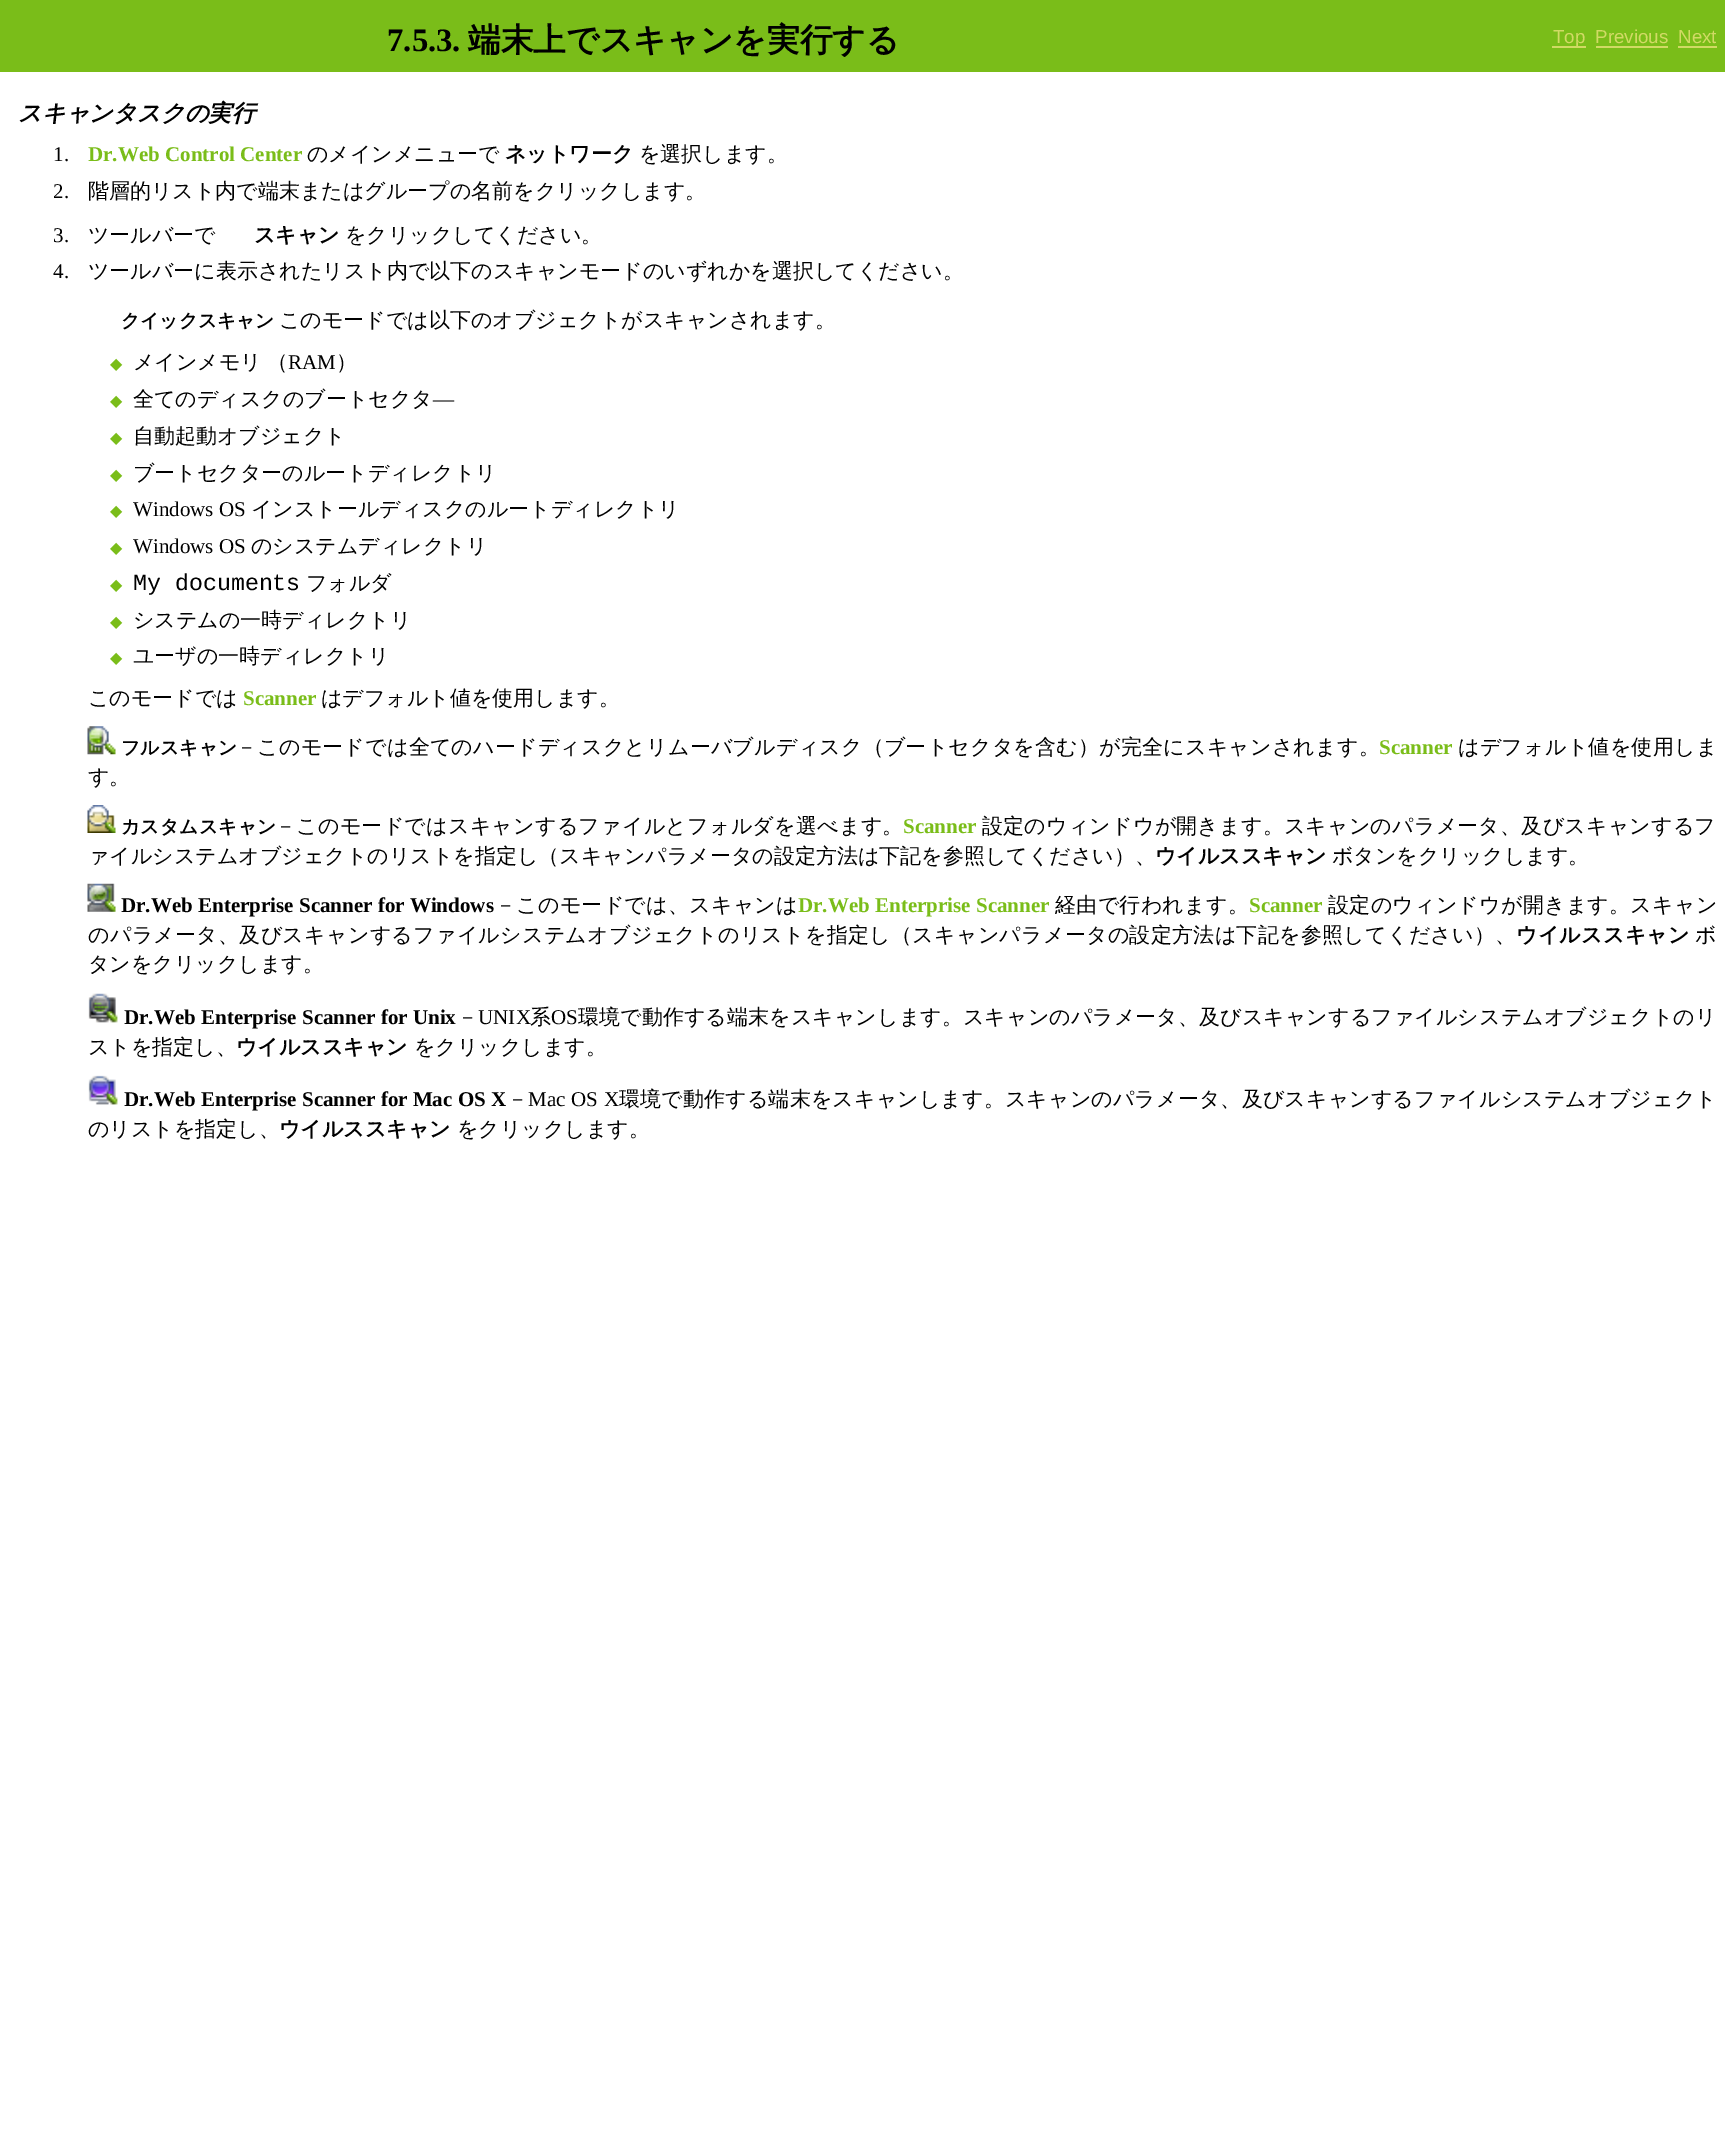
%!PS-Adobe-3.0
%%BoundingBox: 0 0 1725 2135
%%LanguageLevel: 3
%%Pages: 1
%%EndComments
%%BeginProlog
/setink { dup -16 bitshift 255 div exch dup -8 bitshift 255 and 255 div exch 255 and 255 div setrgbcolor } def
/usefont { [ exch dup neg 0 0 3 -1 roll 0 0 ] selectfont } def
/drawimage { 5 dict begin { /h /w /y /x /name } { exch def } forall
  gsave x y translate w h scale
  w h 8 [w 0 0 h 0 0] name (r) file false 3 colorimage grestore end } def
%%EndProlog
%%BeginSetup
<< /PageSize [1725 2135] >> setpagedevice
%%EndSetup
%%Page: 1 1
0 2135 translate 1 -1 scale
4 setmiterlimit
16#FFFFFF setink
0 0 1725 2135 rectfill
16#7ABD19 setink
0 0 1725 72 rectfill
/LiberationSerif-Bold 32.7 usefont
16#000000 setink
387 51 moveto (7.5.3.) show
/WenQuanYiZenHei-Bold 32.7 usefont
468 51 moveto (端末上でスキャンを実行する) show
16#D1DA65 setink
1552 46 34 2 rectfill
/LiberationSans-Regular 18.75 usefont
1553 43 moveto (Top) show
1595 43 moveto (Previous) show
1596 46 72 2 rectfill
1678 43 moveto (Next) show
1678 46 39 2 rectfill
/WenQuanYiZenHei-BoldItalic 23.25 usefont
16#000000 setink
18 121 moveto (スキャンタスクの実行) show
/LiberationSerif-Regular 21 usefont
53 161 moveto (1.) show
/LiberationSerif-Bold 21 usefont
16#7ABD19 setink
88 161 moveto (Dr.Web Control Center) show
/WenQuanYiZenHei-Medium 21 usefont
16#000000 setink
307 161 moveto (のメインメニューで) show
/WenQuanYiZenHei-Bold 21 usefont
505 161 moveto (ネットワーク) show
/WenQuanYiZenHei-Medium 21 usefont
639 161 moveto (を選択します。) show
/LiberationSerif-Regular 21 usefont
53 198 moveto (2.) show
/WenQuanYiZenHei-Medium 21 usefont
88 198 moveto (階層的リスト内で端末またはグループの名前をクリックします。) show
/LiberationSerif-Regular 21 usefont
53 242 moveto (3.) show
/WenQuanYiZenHei-Medium 21 usefont
88 242 moveto (ツールバーで) show
/WenQuanYiZenHei-Bold 21 usefont
254 242 moveto (スキャン) show
/WenQuanYiZenHei-Medium 21 usefont
345 242 moveto (をクリックしてください。) show
/LiberationSerif-Regular 21 usefont
53 278 moveto (4.) show
/WenQuanYiZenHei-Medium 21 usefont
88 278 moveto (ツールバーに表示されたリスト内で以下のスキャンモードのいずれかを選択してください。) show
/WenQuanYiZenHei-Bold 18.75 usefont
121 327 moveto (クイックスキャン) show
/WenQuanYiZenHei-Medium 21 usefont
279 327 moveto (このモードでは以下のオブジェクトがスキャンされます。) show
/DejaVuSans-Regular 16 usefont
16#7ABD19 setink
110 369 moveto (◆) show
/WenQuanYiZenHei-Medium 21 usefont
16#000000 setink
133 369 moveto -1 0 32 (メインメモリ （) widthshow
/LiberationSerif-Regular 21 usefont
288 369 moveto (RAM) show
/WenQuanYiZenHei-Medium 21 usefont
336 369 moveto (）) show
/DejaVuSans-Regular 16 usefont
16#7ABD19 setink
110 406 moveto (◆) show
/WenQuanYiZenHei-Medium 21 usefont
16#000000 setink
133 406 moveto (全てのディスクのブートセクタ) show
/LiberationSerif-Regular 21 usefont
433 406 moveto (―) show
/DejaVuSans-Regular 16 usefont
16#7ABD19 setink
110 443 moveto (◆) show
/WenQuanYiZenHei-Medium 21 usefont
16#000000 setink
133 443 moveto (自動起動オブジェクト) show
/DejaVuSans-Regular 16 usefont
16#7ABD19 setink
110 480 moveto (◆) show
/WenQuanYiZenHei-Medium 21 usefont
16#000000 setink
133 480 moveto (ブートセクターのルートディレクトリ) show
/DejaVuSans-Regular 16 usefont
16#7ABD19 setink
110 516 moveto (◆) show
/LiberationSerif-Regular 21 usefont
16#000000 setink
133 516 moveto (Windows OS) show
/WenQuanYiZenHei-Medium 21 usefont
251 516 moveto (インストールディスクのルートディレクトリ) show
/DejaVuSans-Regular 16 usefont
16#7ABD19 setink
110 553 moveto (◆) show
/LiberationSerif-Regular 21 usefont
16#000000 setink
133 553 moveto (Windows OS) show
/WenQuanYiZenHei-Medium 21 usefont
251 553 moveto (のシステムディレクトリ) show
/DejaVuSans-Regular 16 usefont
16#7ABD19 setink
110 590 moveto (◆) show
/LiberationMono-Regular 23.25 usefont
16#000000 setink
133 590 moveto (My documents) show
/WenQuanYiZenHei-Medium 21 usefont
306 590 moveto (フォルダ) show
/DejaVuSans-Regular 16 usefont
16#7ABD19 setink
110 627 moveto (◆) show
/WenQuanYiZenHei-Medium 21 usefont
16#000000 setink
133 627 moveto (システムの一時ディレクトリ) show
/DejaVuSans-Regular 16 usefont
16#7ABD19 setink
110 663 moveto (◆) show
/WenQuanYiZenHei-Medium 21 usefont
16#000000 setink
133 663 moveto (ユーザの一時ディレクトリ) show
88 705 moveto (このモードでは) show
/LiberationSerif-Bold 21 usefont
16#7ABD19 setink
243 705 moveto (Scanner) show
/WenQuanYiZenHei-Medium 21 usefont
16#000000 setink
321 705 moveto (はデフォルト値を使用します。) show
(img1.raw) 87 726 29 29 drawimage
/WenQuanYiZenHei-Bold 18.75 usefont
121 754 moveto 0.25 0 (フルスキャン) ashow
/WenQuanYiZenHei-Medium 21 usefont
236 754 moveto 0.2 0 (－このモードでは全てのハードディスクとリムーバブルディスク（ブートセクタを含む）が完全にスキャンされます。) ashow
/LiberationSerif-Bold 21 usefont
16#7ABD19 setink
1379 754 moveto (Scanner) show
/WenQuanYiZenHei-Medium 21 usefont
16#000000 setink
1458 754 moveto 0.25 0 (はデフォルト値を使用しま) ashow
88 784 moveto (す。) show
(img2.raw) 87 805 29 28 drawimage
/WenQuanYiZenHei-Bold 18.75 usefont
121 833 moveto 0.25 0 (カスタムスキャン) ashow
/WenQuanYiZenHei-Medium 21 usefont
275 833 moveto 0.25 0 (－このモードではスキャンするファイルとフォルダを選べます。) ashow
/LiberationSerif-Bold 21 usefont
16#7ABD19 setink
903 833 moveto (Scanner) show
/WenQuanYiZenHei-Medium 21 usefont
16#000000 setink
982 833 moveto 0.2 0 (設定のウィンドウが開きます。スキャンのパラメータ、及びスキャンするフ) ashow
88 863 moveto (ァイルシステムオブジェクトのリストを指定し（スキャンパラメータの設定方法は下記を参照してください）、) show
/WenQuanYiZenHei-Bold 21 usefont
1155 863 moveto (ウイルススキャン) show
/WenQuanYiZenHei-Medium 21 usefont
1332 863 moveto (ボタンをクリックします。) show
(img3.raw) 87 883 29 29 drawimage
/LiberationSerif-Bold 21 usefont
121 912 moveto (Dr.Web Enterprise Scanner for Windows) show
/WenQuanYiZenHei-Medium 21 usefont
495 912 moveto 0.25 0 (－このモードでは、スキャンは) ashow
/LiberationSerif-Bold 21 usefont
16#7ABD19 setink
798 912 moveto (Dr.Web Enterprise Scanner) show
/WenQuanYiZenHei-Medium 21 usefont
16#000000 setink
1055 912 moveto 0.28 0 (経由で行われます。) ashow
/LiberationSerif-Bold 21 usefont
16#7ABD19 setink
1249 912 moveto (Scanner) show
/WenQuanYiZenHei-Medium 21 usefont
16#000000 setink
1328 912 moveto 0.25 0 (設定のウィンドウが開きます。スキャン) ashow
88 942 moveto 0.28 0 (のパラメータ、及びスキャンするファイルシステムオブジェクトのリストを指定し（スキャンパラメータの設定方法は下記を参照してください）、) ashow
/WenQuanYiZenHei-Bold 21 usefont
1516 942 moveto 0.25 0 (ウイルススキャン) ashow
/WenQuanYiZenHei-Medium 21 usefont
1695 942 moveto (ボ) show
88 971 moveto (タンをクリックします。) show
(img4.raw) 88 993 30 30 drawimage
/LiberationSerif-Bold 21 usefont
124 1024 moveto (Dr.Web Enterprise Scanner for Unix) show
/WenQuanYiZenHei-Medium 21 usefont
457 1024 moveto 0.08 0 (－) ashow
/LiberationSerif-Regular 21 usefont
478 1024 moveto 0.08 0 (UNIX) ashow
/WenQuanYiZenHei-Medium 21 usefont
530 1024 moveto 0.08 0 (系) ashow
/LiberationSerif-Regular 21 usefont
551 1024 moveto 0.08 0 (OS) ashow
/WenQuanYiZenHei-Medium 21 usefont
578 1024 moveto 0.08 0 (環境で動作する端末をスキャンします。スキャンのパラメータ、及びスキャンするファイルシステムオブジェクトのリ) ashow
88 1054 moveto (ストを指定し、) show
/WenQuanYiZenHei-Bold 21 usefont
236 1054 moveto (ウイルススキャン) show
/WenQuanYiZenHei-Medium 21 usefont
414 1054 moveto (をクリックします。) show
(img5.raw) 88 1075 30 30 drawimage
/LiberationSerif-Bold 21 usefont
124 1106 moveto (Dr.Web Enterprise Scanner for Mac OS X) show
/WenQuanYiZenHei-Medium 21 usefont
507 1106 moveto 0.13 0 (－) ashow
/LiberationSerif-Regular 21 usefont
528 1106 moveto 0.13 0 (Mac OS X) ashow
/WenQuanYiZenHei-Medium 21 usefont
619 1106 moveto 0.13 0 (環境で動作する端末をスキャンします。スキャンのパラメータ、及びスキャンするファイルシステムオブジェクト) ashow
88 1136 moveto (のリストを指定し、) show
/WenQuanYiZenHei-Bold 21 usefont
279 1136 moveto (ウイルススキャン) show
/WenQuanYiZenHei-Medium 21 usefont
457 1136 moveto (をクリックします。) show
showpage
%%EOF
